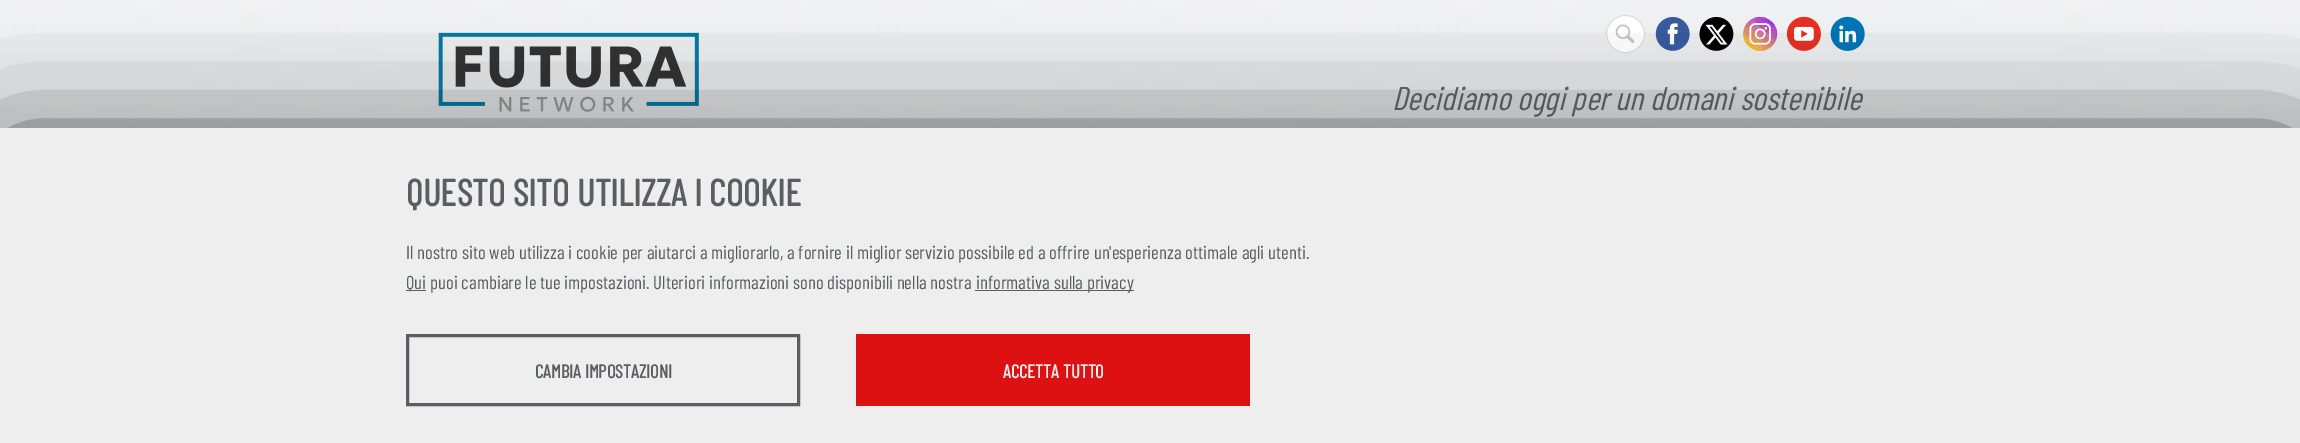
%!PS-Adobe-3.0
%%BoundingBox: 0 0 2300 443
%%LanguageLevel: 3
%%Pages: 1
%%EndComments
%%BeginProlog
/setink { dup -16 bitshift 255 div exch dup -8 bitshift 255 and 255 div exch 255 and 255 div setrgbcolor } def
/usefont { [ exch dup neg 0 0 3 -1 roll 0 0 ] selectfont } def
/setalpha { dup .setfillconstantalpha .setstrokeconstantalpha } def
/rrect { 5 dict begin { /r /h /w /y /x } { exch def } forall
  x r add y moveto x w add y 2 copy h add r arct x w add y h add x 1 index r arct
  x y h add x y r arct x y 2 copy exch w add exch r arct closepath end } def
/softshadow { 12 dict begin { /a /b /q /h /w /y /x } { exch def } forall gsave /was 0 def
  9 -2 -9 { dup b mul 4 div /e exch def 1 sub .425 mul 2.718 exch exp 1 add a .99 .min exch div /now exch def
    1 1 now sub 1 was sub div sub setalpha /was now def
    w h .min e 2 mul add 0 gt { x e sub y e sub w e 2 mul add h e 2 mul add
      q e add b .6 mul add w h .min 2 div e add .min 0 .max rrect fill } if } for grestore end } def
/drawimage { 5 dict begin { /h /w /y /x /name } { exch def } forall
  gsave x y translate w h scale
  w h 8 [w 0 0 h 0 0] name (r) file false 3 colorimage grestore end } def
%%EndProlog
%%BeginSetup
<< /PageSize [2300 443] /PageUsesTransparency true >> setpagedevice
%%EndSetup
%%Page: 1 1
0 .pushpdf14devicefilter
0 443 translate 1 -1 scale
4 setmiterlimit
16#FFFFFF setink
0 0 2300 443 rectfill
(img1.raw) 0 0 2300 128 drawimage
(img2.raw) 438 32 261 80 drawimage
1606 15 39 38 19 rrect fill
(img3.raw) 1615 24 20 19 drawimage
16#DBDBDB setink
1606.5 15.5 38 37 18.5 rrect stroke
(img4.raw) 1655 17 35 34 drawimage
(img5.raw) 1699 17 35 34 drawimage
(img6.raw) 1743 16 35 35 drawimage
(img7.raw) 1786 16 35 35 drawimage
(img8.raw) 1830 16 35 35 drawimage
/BarlowCondensed-Italic 33 usefont
16#666666 setink
1392 110 moveto (Decidiamo oggi per un domani sostenibile) show
16#000000 setink
11 161 2278 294 0 57 1 softshadow
16#EEEEEE setink
0 128 2300 315 rectfill
/BarlowCondensed-Bold 37.5 usefont
16#595F60 setink
406 206 moveto (QUESTO SITO UTILIZZA I COOKIE) show
/BarlowCondensed-Regular 18.75 usefont
406 259 moveto (Il nostro sito web utilizza i cookie per aiutarci a migliorarlo, a fornire il miglior servizio possibile ed a offrire un'esperienza ottimale agli utenti.) show
406 290 20 1 rectfill
406 289 moveto (Qui puoi cambiare le tue impostazioni. Ulteriori informazioni sono disponibili nella nostra) show
975 290 159 1 rectfill
976 289 moveto (informativa sulla privacy) show
3 setlinewidth
407.5 335.5 391 69 rectstroke
/BarlowCondensed-Bold 18.75 usefont
535 378 moveto (CAMBIA IMPOSTAZIONI) show
16#DD1111 setink
856 334 394 72 rectfill
16#EEEEEE setink
1003 378 moveto (ACCETTA TUTTO) show
.poppdf14devicefilter showpage
%%EOF
